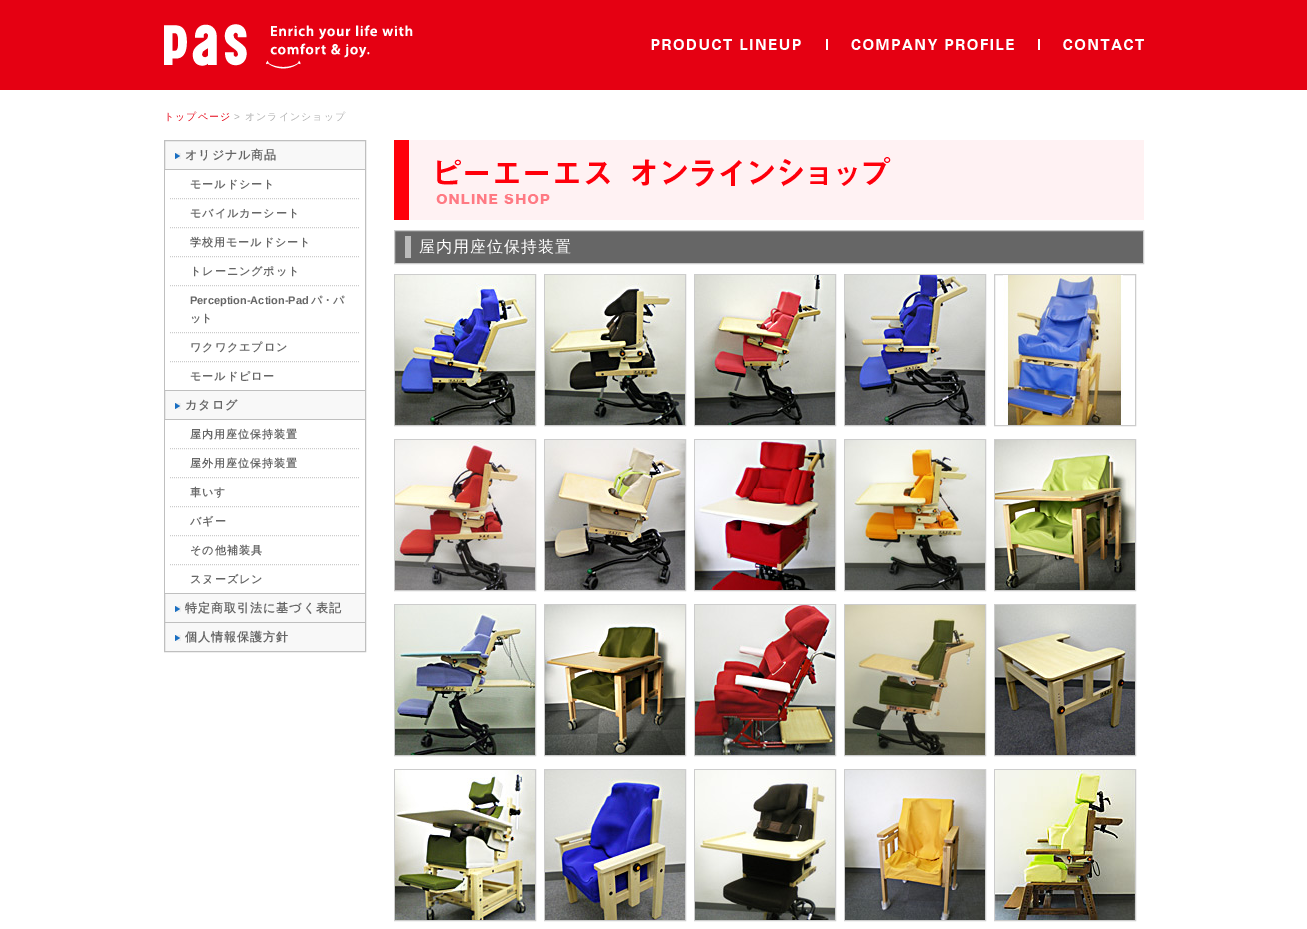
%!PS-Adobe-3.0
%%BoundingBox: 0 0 1307 929
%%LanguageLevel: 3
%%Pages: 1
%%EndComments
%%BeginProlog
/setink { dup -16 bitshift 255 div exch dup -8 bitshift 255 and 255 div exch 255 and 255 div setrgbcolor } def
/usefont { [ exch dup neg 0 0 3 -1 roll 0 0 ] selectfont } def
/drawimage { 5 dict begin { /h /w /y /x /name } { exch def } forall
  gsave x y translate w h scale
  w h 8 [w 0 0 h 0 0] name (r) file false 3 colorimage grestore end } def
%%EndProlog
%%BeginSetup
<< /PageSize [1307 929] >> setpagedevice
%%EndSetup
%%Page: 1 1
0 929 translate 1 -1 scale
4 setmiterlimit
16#FFFFFF setink
0 0 1307 929 rectfill
16#E50012 setink
0 0 1307 90 rectfill
(img1.raw) 164 24 249 45 drawimage
16#FFFFFF setink
826 39 2 11 rectfill
(img2.raw) 651 39 150 11 drawimage
1038 39 2 11 rectfill
(img3.raw) 851 39 163 11 drawimage
(img4.raw) 1063 39 81 11 drawimage
/WenQuanYiZenHei-Medium 10 usefont
16#E50012 setink
164 120 moveto 1 0 (トップページ) ashow
/LiberationSans-Regular 10 usefont
16#B0B0B0 setink
234 120 moveto 1 0 (>) ashow
/WenQuanYiZenHei-Medium 10 usefont
245 120 moveto 1 0 (オンラインショップ) ashow
16#F8F8F8 setink
164.5 140.5 moveto 365.5 140.5 lineto 365.5 651.5 lineto 164.5 651.5 lineto closepath gsave fill grestore
16#BFBFBF setink
stroke
(img5.raw) 175 153 6 6 drawimage
165 169 200 1 rectfill
/WenQuanYiZenHei-Bold 12 usefont
16#666666 setink
185 159 moveto 1 0 (オリジナル商品) ashow
16#FFFFFF setink
165 170 200 220 rectfill
16#CCCCCC setink
[1 1] 0 setdash
170 198.5 moveto 360 198.5 lineto stroke
/WenQuanYiZenHei-Bold 11 usefont
16#666666 setink
190 188 moveto 1 0 (モールドシート) ashow
16#CCCCCC setink
170 227.5 moveto 360 227.5 lineto stroke
16#666666 setink
190 217 moveto 1 0 (モバイルカーシート) ashow
16#CCCCCC setink
170 256.5 moveto 360 256.5 lineto stroke
16#666666 setink
190 246 moveto 1 0 (学校用モールドシート) ashow
16#CCCCCC setink
170 285.5 moveto 360 285.5 lineto stroke
16#666666 setink
190 275 moveto 1 0 (トレーニングポット) ashow
16#CCCCCC setink
170 332.5 moveto 360 332.5 lineto stroke
/LiberationSans-Bold 11 usefont
16#666666 setink
190 304 moveto (Perception-Action-Pad) show
/WenQuanYiZenHei-Bold 11 usefont
311 304 moveto (パ・パ) show
190 322 moveto (ット) show
16#CCCCCC setink
170 361.5 moveto 360 361.5 lineto stroke
16#666666 setink
190 351 moveto 1 0 (ワクワクエプロン) ashow
190 380 moveto 1 0 (モールドピロー) ashow
(img5.raw) 175 403 6 6 drawimage
16#BFBFBF setink
165 390 200 1 rectfill
165 419 200 1 rectfill
/WenQuanYiZenHei-Bold 12 usefont
16#666666 setink
185 409 moveto 1 0 (カタログ) ashow
16#FFFFFF setink
165 420 200 173 rectfill
16#CCCCCC setink
170 448.5 moveto 360 448.5 lineto stroke
/WenQuanYiZenHei-Bold 11 usefont
16#666666 setink
190 438 moveto 1 0 (屋内用座位保持装置) ashow
16#CCCCCC setink
170 477.5 moveto 360 477.5 lineto stroke
16#666666 setink
190 467 moveto 1 0 (屋外用座位保持装置) ashow
16#CCCCCC setink
170 506.5 moveto 360 506.5 lineto stroke
16#666666 setink
190 496 moveto 1 0 (車いす) ashow
16#CCCCCC setink
170 535.5 moveto 360 535.5 lineto stroke
16#666666 setink
190 525 moveto 1 0 (バギー) ashow
16#CCCCCC setink
170 564.5 moveto 360 564.5 lineto stroke
16#666666 setink
190 554 moveto 1 0 (その他補装具) ashow
190 583 moveto 1 0 (スヌーズレン) ashow
(img5.raw) 175 606 6 6 drawimage
16#BFBFBF setink
165 593 200 1 rectfill
165 622 200 1 rectfill
/WenQuanYiZenHei-Bold 12 usefont
16#666666 setink
185 612 moveto 1 0 (特定商取引法に基づく表記) ashow
(img5.raw) 175 635 6 6 drawimage
185 641 moveto 1 0 (個人情報保護方針) ashow
(img6.raw) 394 140 750 80 drawimage
394.5 230.5 moveto 1143.5 230.5 lineto 1143.5 263.5 lineto 394.5 263.5 lineto closepath gsave fill grestore
16#CCCCCC setink
[] 0 setdash
stroke
16#BBBBBB setink
405 236 6 22 rectfill
/WenQuanYiZenHei-Medium 16 usefont
16#FFFFFF setink
419 252 moveto 1 0 (屋内用座位保持装置) ashow
16#CCCCCC setink
394.5 274.5 141 151 rectstroke
(img7.raw) 395 275 140 150 drawimage
544.5 274.5 141 151 rectstroke
(img8.raw) 545 275 140 150 drawimage
694.5 274.5 141 151 rectstroke
(img9.raw) 695 275 140 150 drawimage
844.5 274.5 141 151 rectstroke
(img10.raw) 845 275 140 150 drawimage
994.5 274.5 141 151 rectstroke
(img11.raw) 1003 275 120 150 drawimage
394.5 439.5 141 151 rectstroke
(img12.raw) 395 440 140 150 drawimage
544.5 439.5 141 151 rectstroke
(img13.raw) 545 440 140 150 drawimage
694.5 439.5 141 151 rectstroke
(img14.raw) 695 440 140 150 drawimage
844.5 439.5 141 151 rectstroke
(img15.raw) 845 440 140 150 drawimage
994.5 439.5 141 151 rectstroke
(img16.raw) 995 440 140 150 drawimage
394.5 604.5 141 151 rectstroke
(img17.raw) 395 605 140 150 drawimage
544.5 604.5 141 151 rectstroke
(img18.raw) 545 605 140 150 drawimage
694.5 604.5 141 151 rectstroke
(img19.raw) 695 605 140 150 drawimage
844.5 604.5 141 151 rectstroke
(img20.raw) 845 605 140 150 drawimage
994.5 604.5 141 151 rectstroke
(img21.raw) 995 605 140 150 drawimage
394.5 769.5 141 151 rectstroke
(img22.raw) 395 770 140 150 drawimage
544.5 769.5 141 151 rectstroke
(img23.raw) 545 770 140 150 drawimage
694.5 769.5 141 151 rectstroke
(img24.raw) 695 770 140 150 drawimage
844.5 769.5 141 151 rectstroke
(img25.raw) 845 770 140 150 drawimage
994.5 769.5 141 151 rectstroke
(img26.raw) 995 770 140 150 drawimage
showpage
%%EOF
